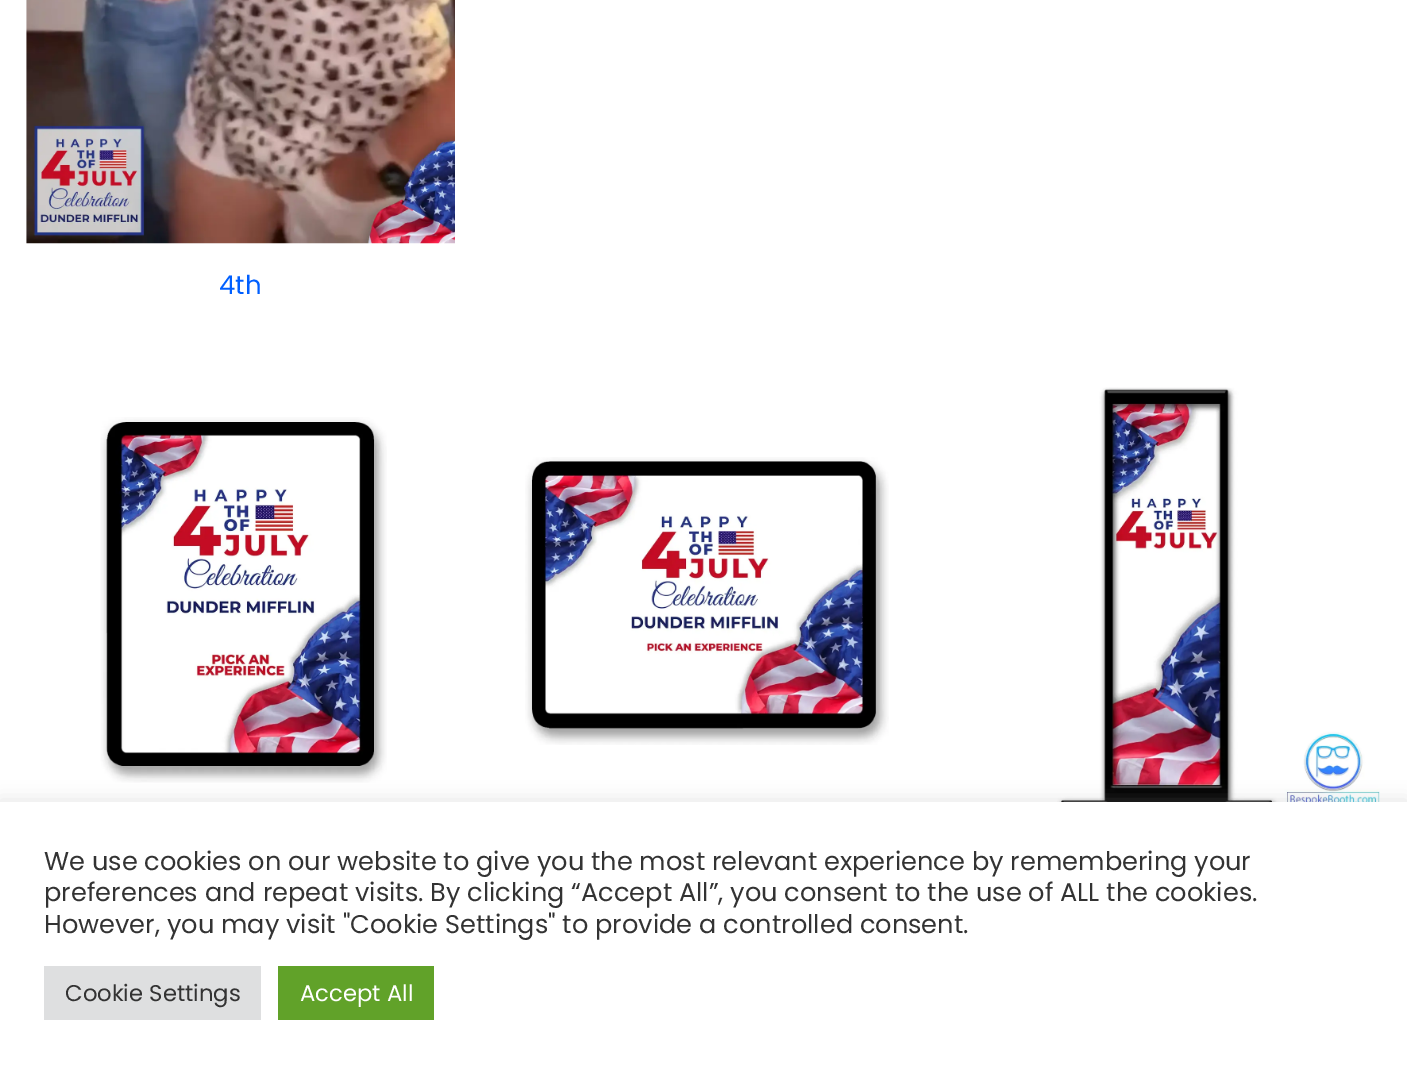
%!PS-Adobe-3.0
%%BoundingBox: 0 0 1407 1072
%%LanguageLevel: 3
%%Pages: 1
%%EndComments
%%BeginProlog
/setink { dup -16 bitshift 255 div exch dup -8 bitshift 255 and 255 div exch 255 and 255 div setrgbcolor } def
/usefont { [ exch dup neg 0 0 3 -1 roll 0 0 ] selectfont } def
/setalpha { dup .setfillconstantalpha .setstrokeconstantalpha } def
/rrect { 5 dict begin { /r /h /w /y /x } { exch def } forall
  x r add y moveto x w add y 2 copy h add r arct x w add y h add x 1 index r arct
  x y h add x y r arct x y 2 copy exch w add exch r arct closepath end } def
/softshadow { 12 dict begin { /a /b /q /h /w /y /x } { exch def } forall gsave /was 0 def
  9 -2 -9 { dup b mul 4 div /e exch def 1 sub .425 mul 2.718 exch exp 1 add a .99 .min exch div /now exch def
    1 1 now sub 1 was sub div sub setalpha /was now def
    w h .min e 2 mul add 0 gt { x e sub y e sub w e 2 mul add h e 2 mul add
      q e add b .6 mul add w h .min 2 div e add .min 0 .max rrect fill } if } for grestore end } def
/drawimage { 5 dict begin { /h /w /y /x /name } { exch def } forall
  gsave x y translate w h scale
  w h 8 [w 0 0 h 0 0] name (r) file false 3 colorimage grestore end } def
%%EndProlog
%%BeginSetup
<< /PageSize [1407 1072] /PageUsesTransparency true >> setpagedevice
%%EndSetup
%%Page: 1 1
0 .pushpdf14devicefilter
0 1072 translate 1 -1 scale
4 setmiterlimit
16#FFFFFF setink
0 0 1407 1072 rectfill
(img1.raw) 26 0 429 244 drawimage
/Poppins-Regular 26 usefont
16#005FFF setink
219 294 moveto (4th) show
(img2.raw) 100 417 287 366 drawimage
(img3.raw) 525 457 364 288 drawimage
(img4.raw) 1057 387 323 415 drawimage
16#ACABAB setink
0 800 1407 271 0 9 0.3 softshadow
16#FFFFFF setink
0 802 1407 270 rectfill
/Poppins-Regular 25.65 usefont
16#333333 setink
[
    [(We use cookies on our website to give you the most relevant experience by remembering your) 44 870]
    [(preferences and repeat visits. By clicking “Accept All”, you consent to the use of ALL the cookies.) 44 901]
    [(However, you may visit "Cookie Settings" to provide a controlled consent.) 44 933]
] { aload pop moveto show } forall
16#DEDFE0 setink
44 966 217 54 rectfill
/Poppins-Regular 22.75 usefont
16#333333 setink
65 1001 moveto (Cookie Settings) show
16#61A229 setink
278 966 156 54 rectfill
16#FFFFFF setink
300 1001 moveto (Accept All) show
.poppdf14devicefilter showpage
%%EOF
